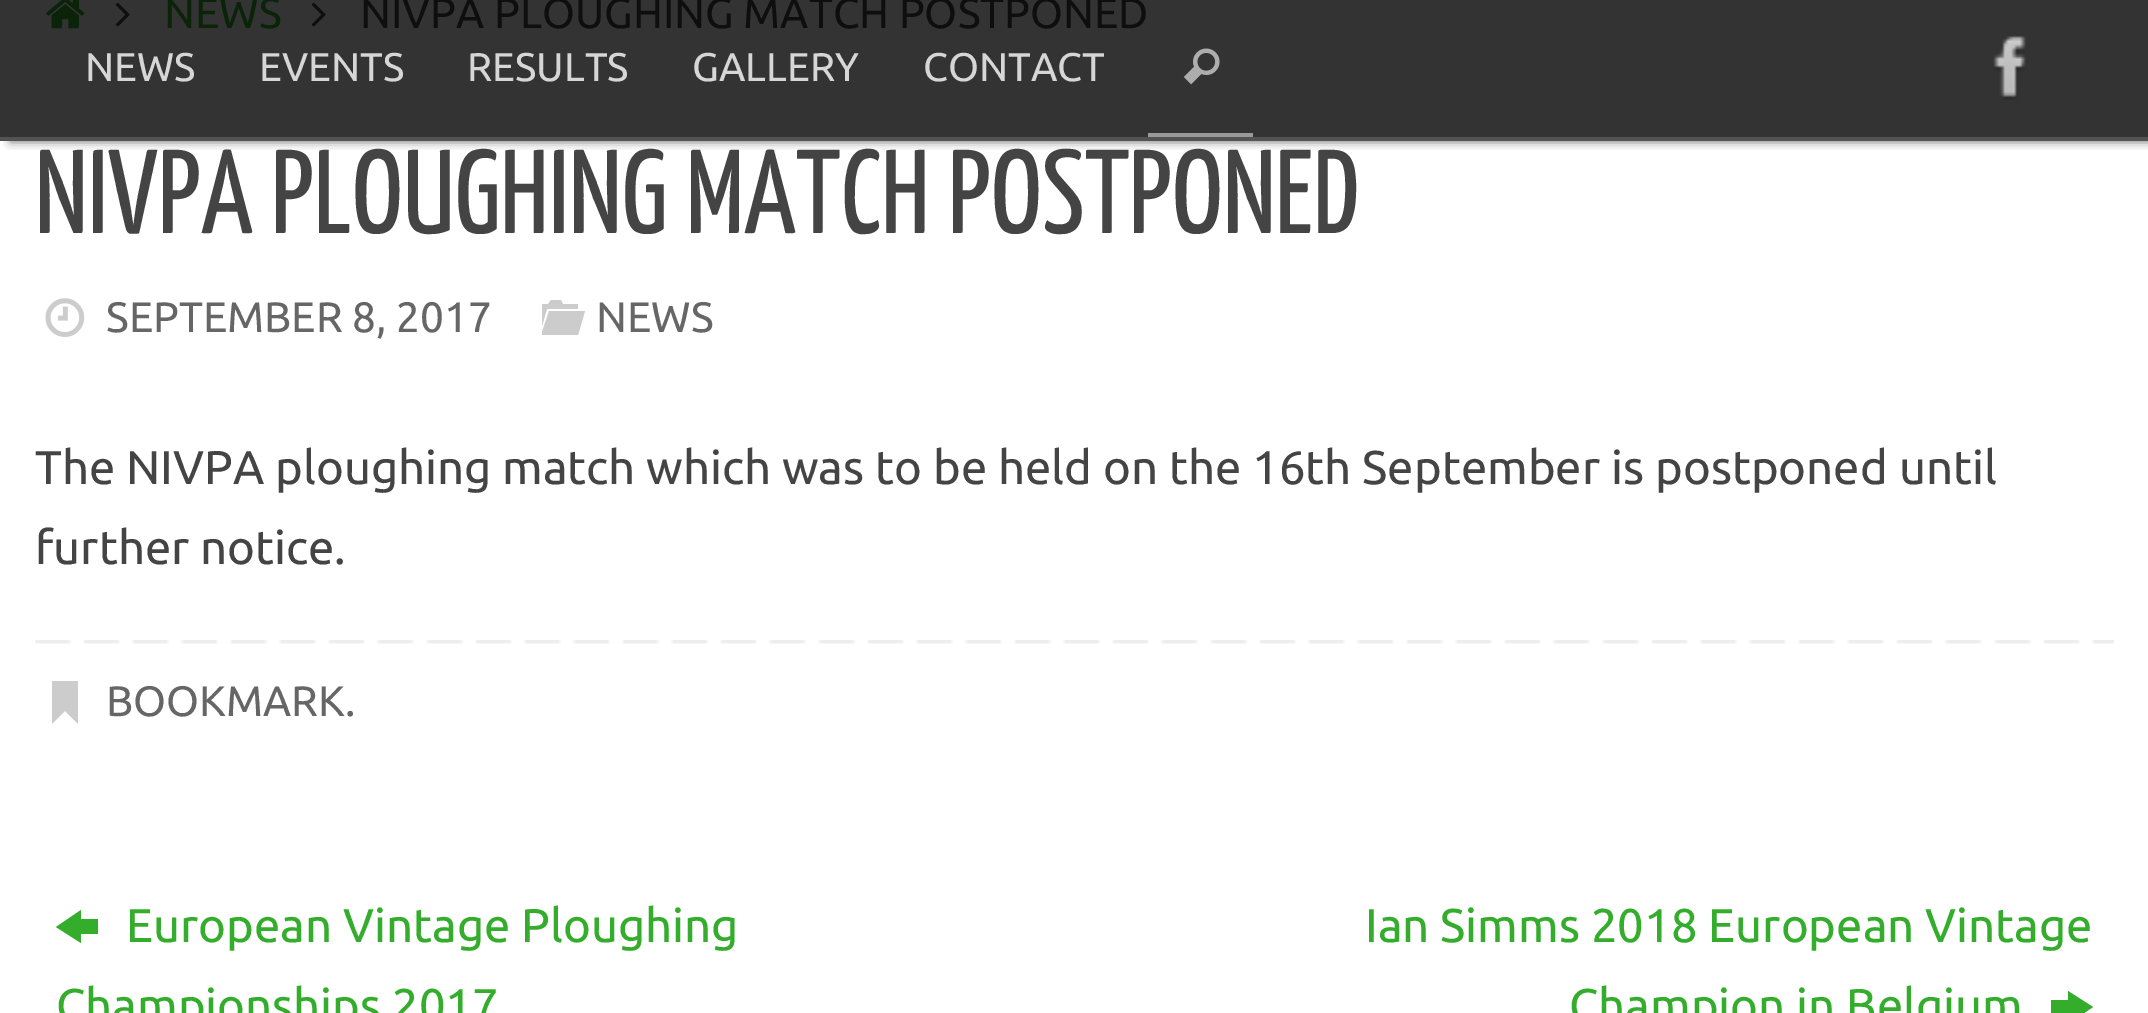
%!PS-Adobe-3.0
%%BoundingBox: 0 0 2148 1013
%%LanguageLevel: 3
%%Pages: 1
%%EndComments
%%BeginProlog
/setink { dup -16 bitshift 255 div exch dup -8 bitshift 255 and 255 div exch 255 and 255 div setrgbcolor } def
/usefont { [ exch dup neg 0 0 3 -1 roll 0 0 ] selectfont } def
/setalpha { dup .setfillconstantalpha .setstrokeconstantalpha } def
/rrect { 5 dict begin { /r /h /w /y /x } { exch def } forall
  x r add y moveto x w add y 2 copy h add r arct x w add y h add x 1 index r arct
  x y h add x y r arct x y 2 copy exch w add exch r arct closepath end } def
/softshadow { 12 dict begin { /a /b /q /h /w /y /x } { exch def } forall gsave /was 0 def
  9 -2 -9 { dup b mul 4 div /e exch def 1 sub .425 mul 2.718 exch exp 1 add a .99 .min exch div /now exch def
    1 1 now sub 1 was sub div sub setalpha /was now def
    w h .min e 2 mul add 0 gt { x e sub y e sub w e 2 mul add h e 2 mul add
      q e add b .6 mul add w h .min 2 div e add .min 0 .max rrect fill } if } for grestore end } def
/drawimage { 5 dict begin { /h /w /y /x /name } { exch def } forall
  gsave x y translate w h scale
  w h 8 [w 0 0 h 0 0] name (r) file false 3 colorimage grestore end } def
%%EndProlog
%%BeginSetup
<< /PageSize [2148 1013] /PageUsesTransparency true >> setpagedevice
%%EndSetup
%%Page: 1 1
0 .pushpdf14devicefilter
0 1013 translate 1 -1 scale
4 setmiterlimit
16#FFFFFF setink
0 0 2148 1013 rectfill
16#333333 setink
0 0 2148 137 rectfill
(img1.raw) 46 0 39 29 drawimage
(img2.raw) 115 2 15 25 drawimage
/Ubuntu-Regular 42.5 usefont
16#0A2309 setink
164 28 moveto (NEWS) show
(img2.raw) 311 2 15 25 drawimage
16#0E0E0E setink
360 28 moveto (NIVPA PLOUGHING MATCH POSTPONED) show
/YanoneKaffeesatz-Regular 119 usefont
16#444444 setink
35 233 moveto (NIVPA PLOUGHING MATCH POSTPONED) show
(img3.raw) 45 298 40 39 drawimage
/Ubuntu-Regular 42.5 usefont
16#666666 setink
106 332 moveto (SEPTEMBER 8, 2017) show
16#CCCCCC setink
542 335 moveto 542 332 lineto 549 311 lineto 585 311 lineto 578 335 lineto closepath 542 326 moveto 542 304 lineto 548 304 lineto 551 300 lineto 561 300 lineto 563 304 lineto 578 304 lineto 578 309 lineto 547 309 lineto closepath fill
16#666666 setink
596 332 moveto (NEWS) show
/Ubuntu-Regular 47.25 usefont
16#444444 setink
35 484 moveto (The NIVPA ploughing match which was to be held on the 16th September is postponed until) show
35 564 moveto (further notice.) show
(img4.raw) 35 640 2079 4 drawimage
16#CCCCCC setink
52 720 moveto 52 681 lineto 78 681 lineto 78 724 lineto 65 711 lineto 52 724 lineto closepath fill
/Ubuntu-Regular 42.5 usefont
16#666666 setink
106 716 moveto (BOOKMARK.) show
16#33AD2B setink
56 927 moveto 81 910 lineto 81 919 lineto 98 919 lineto 98 934 lineto 81 934 lineto 81 943 lineto closepath fill
/Ubuntu-Regular 47.25 usefont
[
    [(European Vintage Ploughing) 126 942]
    [(Championships 2017) 56 1022]
    [(Ian Simms 2018 European Vintage) 1365 942]
    [(Champion in Belgium) 1569 1022]
] { aload pop moveto show } forall
2051 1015 moveto 2051 1000 lineto 2068 1000 lineto 2068 991 lineto 2093 1007 lineto 2068 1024 lineto 2068 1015 lineto closepath fill
gsave
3 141 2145 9 rectclip
16#000000 setink
11 0 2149 140 0 5 0.8 softshadow
grestore
16#535353 setink
0 137 2148 4 rectfill
/Ubuntu-Regular 40 usefont
16#D6D6D6 setink
[
    [(NEWS) 85 81]
    [(EVENTS) 259 81]
    [(RESULTS) 467 81]
    [(GALLERY) 692 81]
    [(CONTACT) 923 81]
] { aload pop moveto show } forall
(img5.raw) 1183 48 37 37 drawimage
16#999999 setink
1148 133 105 4 rectfill
(img6.raw) 1993 36 33 64 drawimage
.poppdf14devicefilter showpage
%%EOF
